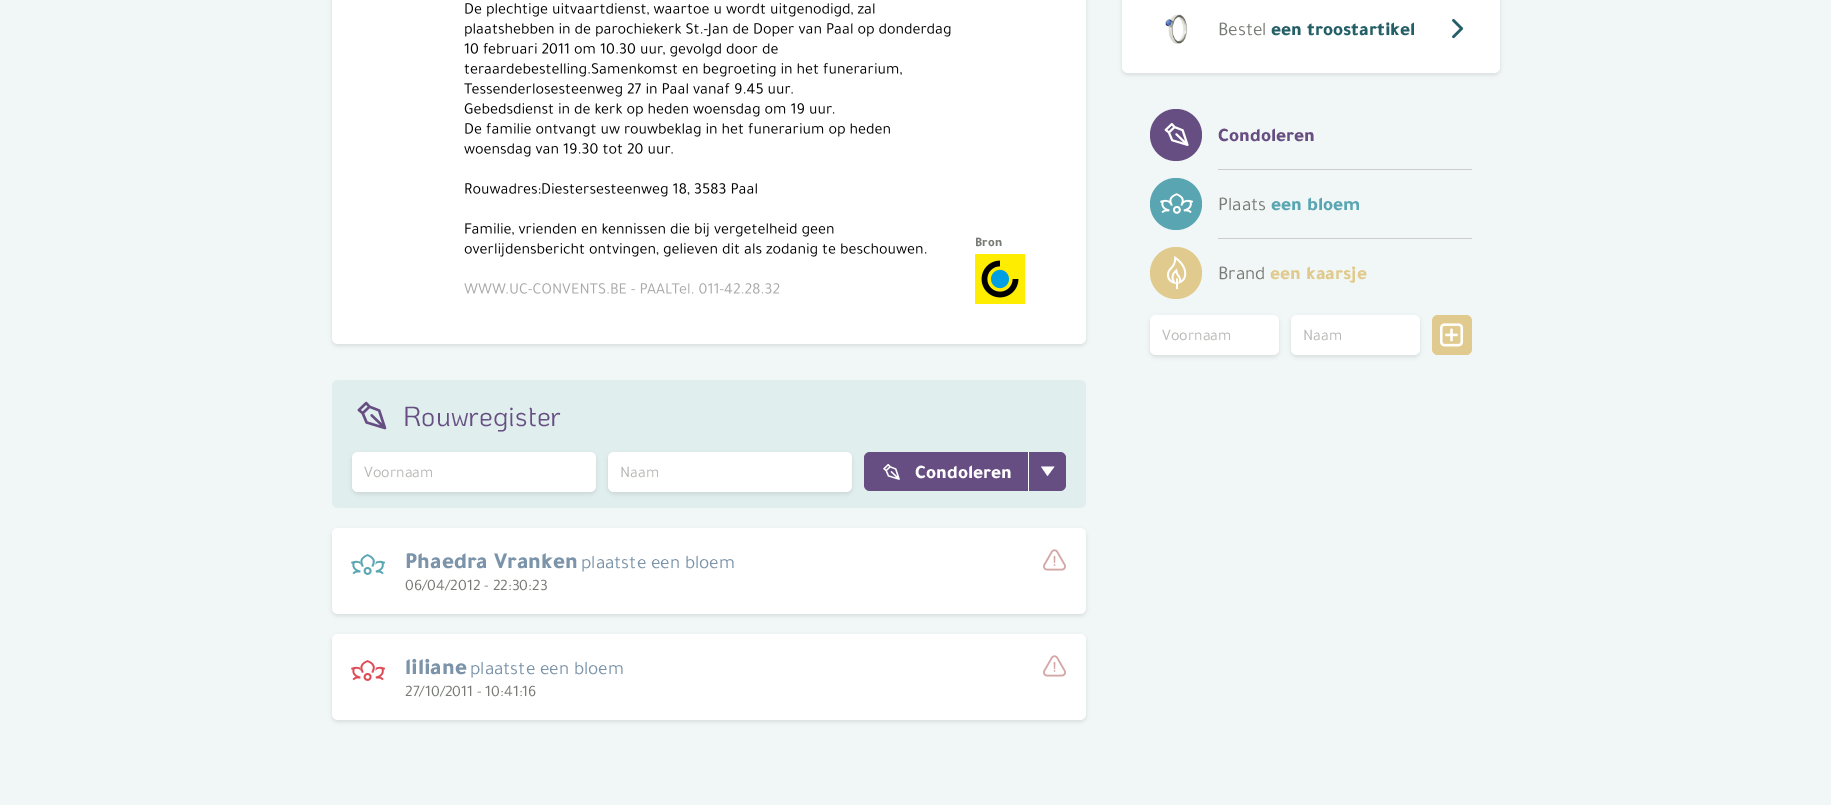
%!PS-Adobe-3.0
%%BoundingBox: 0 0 1831 805
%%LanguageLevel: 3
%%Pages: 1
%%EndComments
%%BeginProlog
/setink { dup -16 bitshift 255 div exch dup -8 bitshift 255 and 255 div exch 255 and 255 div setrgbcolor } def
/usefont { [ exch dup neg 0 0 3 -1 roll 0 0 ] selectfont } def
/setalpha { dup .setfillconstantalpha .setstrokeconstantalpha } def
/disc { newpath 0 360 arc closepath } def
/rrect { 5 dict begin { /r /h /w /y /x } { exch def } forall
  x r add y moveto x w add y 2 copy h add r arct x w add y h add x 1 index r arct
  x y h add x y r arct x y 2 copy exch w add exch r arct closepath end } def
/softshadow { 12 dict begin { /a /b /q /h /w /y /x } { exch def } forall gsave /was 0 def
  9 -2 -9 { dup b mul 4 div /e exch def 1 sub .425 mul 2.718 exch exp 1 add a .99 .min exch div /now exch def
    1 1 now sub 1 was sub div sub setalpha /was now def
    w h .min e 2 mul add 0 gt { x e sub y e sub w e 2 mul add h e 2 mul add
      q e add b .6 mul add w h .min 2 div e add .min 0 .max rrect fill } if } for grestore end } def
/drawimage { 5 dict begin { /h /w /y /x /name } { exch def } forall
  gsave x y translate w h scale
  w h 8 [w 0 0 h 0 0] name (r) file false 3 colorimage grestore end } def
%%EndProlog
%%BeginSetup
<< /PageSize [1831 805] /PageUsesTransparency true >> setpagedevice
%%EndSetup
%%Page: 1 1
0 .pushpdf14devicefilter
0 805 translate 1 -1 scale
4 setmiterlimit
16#F1F7F7 setink
0 0 1831 805 rectfill
16#000000 setink
1122 -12 378 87 6 2 0.1 softshadow
16#FFFFFF setink
1122 -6 378 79 6 rrect fill
(img1.raw) 1165 14 23 30 drawimage
/Tajawal-Regular 19.25 usefont
16#787B75 setink
1218 35 moveto (Bestel) show
/Tajawal-ExtraBold 19.25 usefont
16#245F68 setink
1271 35 moveto (een troostartikel) show
(img2.raw) 1452 19 12 20 drawimage
16#000000 setink
332 -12 754 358 6 2 0.1 softshadow
16#FFFFFF setink
332 -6 754 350 6 rrect fill
(img3.raw) 464 3 487 291 drawimage
/Tajawal-ExtraBold 13 usefont
16#787B75 setink
975 246 moveto (Bron) show
(img4.raw) 975 254 50 50 drawimage
16#E1EEEE setink
332 380 754 128 6 rrect fill
(img5.raw) 357 401 30 29 drawimage
/KoHo-Regular 27.5 usefont
16#664E82 setink
403 426 moveto (Rouwregister) show
16#000000 setink
352 454 244 40 6 2 0.1 softshadow
16#FFFFFF setink
352 452 244 40 6 rrect fill
/Tajawal-Regular 16 usefont
16#B6B8B4 setink
364 477 moveto (Voornaam) show
16#000000 setink
608 454 244 40 6 2 0.1 softshadow
16#FFFFFF setink
608 452 244 40 6 rrect fill
16#B6B8B4 setink
620 477 moveto (Naam) show
16#664E82 setink
864 452 202 39 6 rrect fill
(img6.raw) 883 463 17 17 drawimage
/Tajawal-ExtraBold 19.25 usefont
16#FFFFFF setink
915 478 moveto (Condoleren) show
1028 452 1 39 rectfill
1047.5 476 moveto 1054.5 466.5 lineto 1041 466.5 lineto closepath fill
16#000000 setink
332 530 754 86 6 2 0.1 softshadow
16#FFFFFF setink
332 528 754 86 6 rrect fill
(img7.raw) 351 560 10 15 drawimage
(img8.raw) 360 554 15 21 drawimage
(img9.raw) 375 560 11 15 drawimage
/Tajawal-ExtraBold 23 usefont
16#7B94A9 setink
405 568 moveto (Phaedra Vranken) show
/Tajawal-Regular 19.25 usefont
581 568 moveto (plaatste een bloem) show
/Tajawal-Regular 16 usefont
16#787B75 setink
405 590 moveto (06/04/2012 - 22:30:23) show
(img10.raw) 1043 549 23 22 drawimage
16#000000 setink
332 636 754 86 6 2 0.1 softshadow
16#FFFFFF setink
332 634 754 86 6 rrect fill
(img11.raw) 351 666 10 15 drawimage
(img12.raw) 360 660 15 21 drawimage
(img13.raw) 375 666 11 15 drawimage
/Tajawal-ExtraBold 23 usefont
16#7B94A9 setink
405 674 moveto (liliane) show
/Tajawal-Regular 19.25 usefont
470 674 moveto (plaatste een bloem) show
/Tajawal-Regular 16 usefont
16#787B75 setink
405 696 moveto (27/10/2011 - 10:41:16) show
(img10.raw) 1043 655 23 22 drawimage
16#664E82 setink
1176 135 26 disc fill
(img14.raw) 1164 123 25 23 drawimage
/Tajawal-ExtraBold 19.25 usefont
1218 141 moveto (Condoleren) show
16#CDCDCC setink
1218 169 254 1 rectfill
16#59A5B1 setink
1176 204 26 disc fill
(img15.raw) 1160 193 34 21 drawimage
/Tajawal-Regular 19.25 usefont
16#787B75 setink
1218 210 moveto (Plaats) show
/Tajawal-ExtraBold 19.25 usefont
16#59A5B1 setink
1271 210 moveto (een bloem) show
16#CDCDCC setink
1218 238 254 1 rectfill
16#E1CA8D setink
1176 273 26 disc fill
(img16.raw) 1167 256 20 34 drawimage
/Tajawal-Regular 19.25 usefont
16#787B75 setink
1218 279 moveto (Brand) show
/Tajawal-ExtraBold 19.25 usefont
16#E1CA8D setink
1270 279 moveto (een kaarsje) show
16#000000 setink
1150 317 129 40 6 2 0.1 softshadow
16#FFFFFF setink
1150 315 129 40 6 rrect fill
/Tajawal-Regular 16 usefont
16#B6B8B4 setink
1162 340 moveto (Voornaam) show
16#000000 setink
1291 317 129 40 6 2 0.1 softshadow
16#FFFFFF setink
1291 315 129 40 6 rrect fill
16#B6B8B4 setink
1303 340 moveto (Naam) show
16#E1CA8D setink
1432 315 40 40 6 rrect fill
(img17.raw) 1440 323 24 24 drawimage
.poppdf14devicefilter showpage
%%EOF
